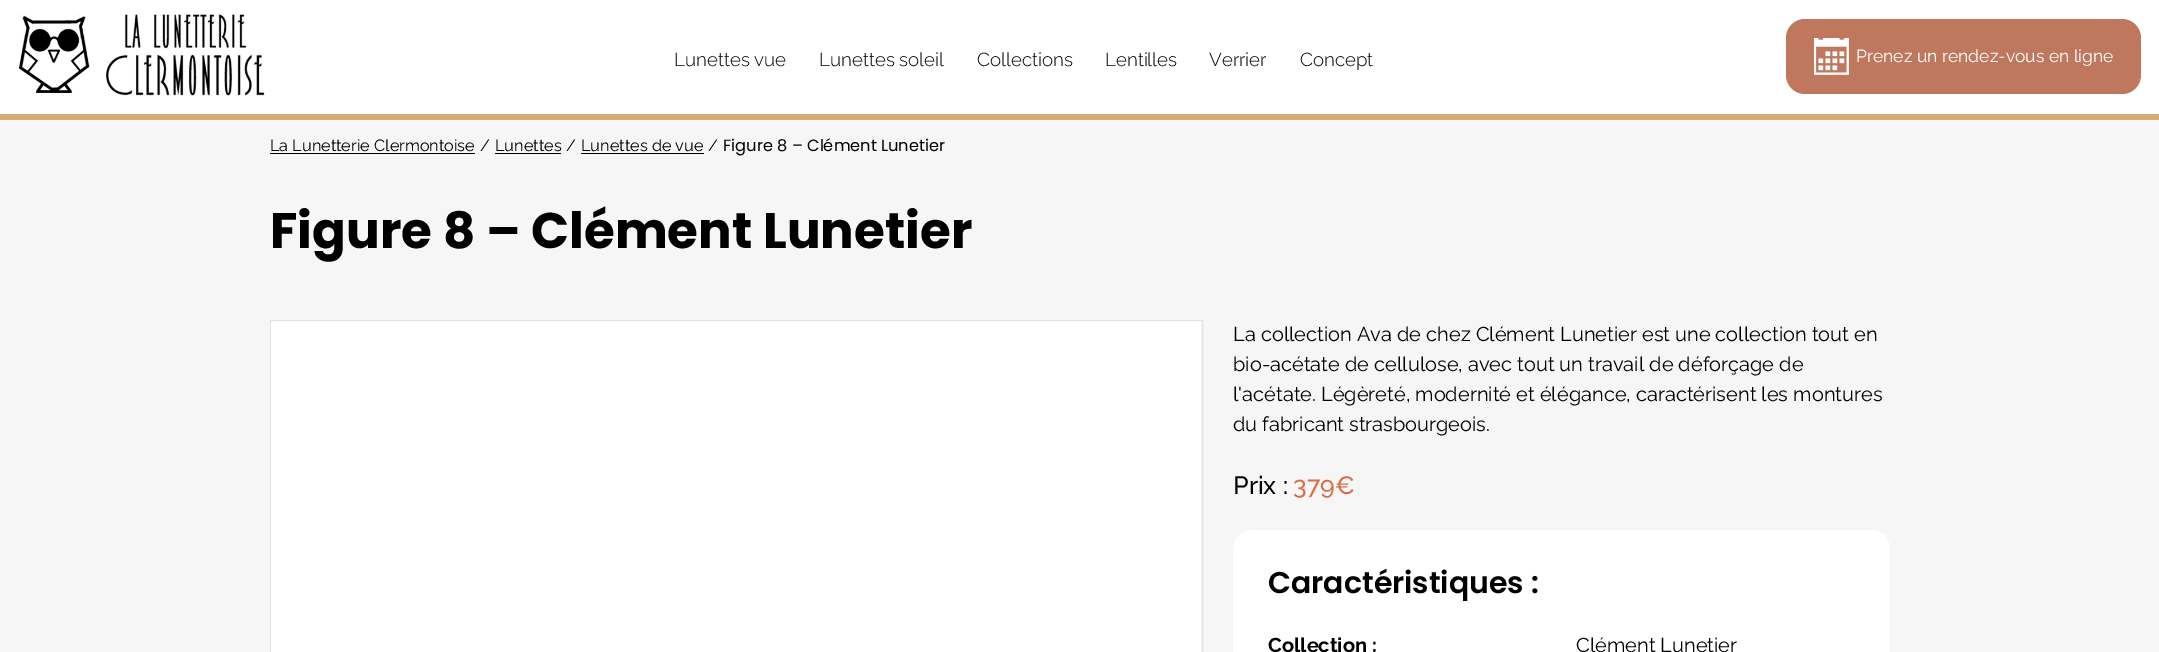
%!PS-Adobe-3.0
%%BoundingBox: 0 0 2159 652
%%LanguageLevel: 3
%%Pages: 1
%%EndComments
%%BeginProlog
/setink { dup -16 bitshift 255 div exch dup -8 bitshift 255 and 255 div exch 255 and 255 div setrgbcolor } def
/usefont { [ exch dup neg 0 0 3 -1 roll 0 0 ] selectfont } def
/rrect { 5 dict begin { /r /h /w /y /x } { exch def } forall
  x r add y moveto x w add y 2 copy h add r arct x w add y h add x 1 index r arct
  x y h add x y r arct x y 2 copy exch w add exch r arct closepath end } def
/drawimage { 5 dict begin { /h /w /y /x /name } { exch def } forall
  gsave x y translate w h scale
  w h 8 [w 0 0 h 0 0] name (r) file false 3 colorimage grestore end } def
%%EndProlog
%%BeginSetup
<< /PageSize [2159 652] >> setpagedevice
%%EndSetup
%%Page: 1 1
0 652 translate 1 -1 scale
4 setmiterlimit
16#F6F6F6 setink
0 0 2159 652 rectfill
16#FFFFFF setink
0 0 2159 114 rectfill
16#D9AB73 setink
0 114 2159 6 rectfill
(img1.raw) 18 14 247 82 drawimage
/Raleway-Light 18.75 usefont
16#000000 setink
[
    [(Lunettes vue) 674 66]
    [(Lunettes soleil) 819 66]
    [(Collections) 977 66]
    [(Lentilles) 1105 66]
    [(Verrier) 1209 66]
    [(Concept) 1300 66]
] { aload pop moveto show } forall
16#BF785E setink
1786 19 355 75 19 rrect fill
(img2.raw) 1814 38 35 37 drawimage
/Raleway-Regular 17.5 usefont
16#FFFFFF setink
1856 62 moveto (Prenez un rendez-vous en ligne) show
/Raleway-Regular 16.25 usefont
16#000000 setink
270 151 moveto (La Lunetterie Clermontoise) show
270 153 205 1 rectfill
480 151 moveto (/) show
495 151 moveto (Lunettes) show
495 153 66 1 rectfill
566 151 moveto (/) show
581 151 moveto (Lunettes de vue) show
581 153 123 1 rectfill
708 151 moveto (/) show
/Poppins-Regular 16.25 usefont
723 151 moveto (Figure 8 – Clément Lunetier) show
/Poppins-Bold 50 usefont
270 248 moveto (Figure 8 – Clément Lunetier) show
16#DEE2E6 setink
270.5 320.5 932 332 rectstroke
16#FFFFFF setink
271 321 930 331 rectfill
/Raleway-Regular 20 usefont
16#000000 setink
[
    [(La collection Ava de chez Clément Lunetier est une collection tout en) 1233 341]
    [(bio-acétate de cellulose, avec tout un travail de déforçage de) 1233 371]
    [(l'acétate. Légèreté, modernité et élégance, caractérisent les montures) 1233 401]
    [(du fabricant strasbourgeois.) 1233 431]
] { aload pop moveto show } forall
/Raleway-Medium 25 usefont
1233 494 moveto (Prix :) show
16#D96E48 setink
1293 494 moveto (379€) show
16#FFFFFF setink
1233 530 657 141 19 rrect fill
/Poppins-SemiBold 30 usefont
16#000000 setink
1268 593 moveto (Caractéristiques :) show
/Raleway-Bold 20 usefont
1268 652 moveto (Collection :) show
/Raleway-Regular 20 usefont
1576 652 moveto (Clément Lunetier) show
showpage
%%EOF
